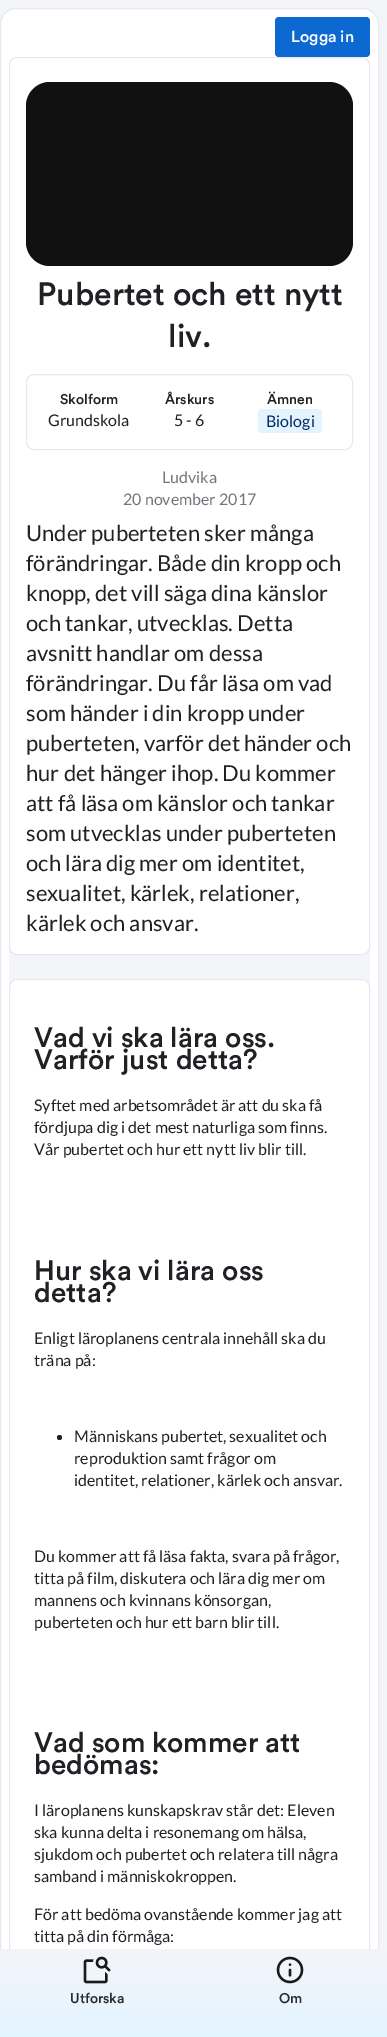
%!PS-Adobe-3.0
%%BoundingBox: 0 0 387 2037
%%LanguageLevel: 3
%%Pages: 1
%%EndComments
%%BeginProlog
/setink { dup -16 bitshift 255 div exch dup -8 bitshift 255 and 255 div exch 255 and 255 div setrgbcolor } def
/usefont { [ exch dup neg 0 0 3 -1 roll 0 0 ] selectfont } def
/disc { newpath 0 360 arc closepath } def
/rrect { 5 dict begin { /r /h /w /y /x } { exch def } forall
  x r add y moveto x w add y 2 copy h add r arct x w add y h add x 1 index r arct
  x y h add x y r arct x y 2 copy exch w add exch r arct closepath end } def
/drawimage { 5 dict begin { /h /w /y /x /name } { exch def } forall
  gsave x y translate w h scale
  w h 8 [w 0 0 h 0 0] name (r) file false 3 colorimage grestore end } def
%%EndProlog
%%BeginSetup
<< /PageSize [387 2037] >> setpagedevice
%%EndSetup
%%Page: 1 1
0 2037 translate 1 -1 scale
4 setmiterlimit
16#F3F5F9 setink
0 0 387 2037 rectfill
16#FFFFFF setink
0.5 8.5 378 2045 15.5 rrect gsave fill grestore
16#E6E9F0 setink
stroke
16#0C69D2 setink
275 17 95 40 4 rrect fill
/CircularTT-Medium 16 usefont
16#FFFFFF setink
291 42 moveto (Logga in) show
16#F3F5F9 setink
9 57 361 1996 16 rrect fill
16#FFFFFF setink
9.5 57.5 360 897 7.5 rrect gsave fill grestore
16#E6E9F0 setink
stroke
16#111111 setink
26 82 327 184 24 rrect fill
/CircularTT-Medium 32 usefont
16#1F2124 setink
37 305 moveto (Pubertet och ett nytt) show
168 347 moveto (liv.) show
16#E6E9F0 setink
26.5 374.5 326 75 7.5 rrect stroke
/CircularTT-Medium 14 usefont
16#1F2124 setink
60 404 moveto (Skolform) show
/Lato-Regular 16 usefont
48 426 moveto (Grundskola) show
/CircularTT-Medium 14 usefont
165 404 moveto (Årskurs) show
/Lato-Regular 16 usefont
174 426 moveto (5 - 6) show
/CircularTT-Medium 14 usefont
267 404 moveto (Ämnen) show
16#E4F4FF setink
258 409 64 24 4 rrect fill
/Lato-Regular 16 usefont
16#042A65 setink
266 427 moveto (Biologi) show
16#72777E setink
162 483 moveto (Ludvika) show
123 505 moveto (20 november 2017) show
/Lato-Regular 22 usefont
16#1F2124 setink
[
    [(Under puberteten sker många) 26 541]
    [(förändringar. Både din kropp och) 26 571]
    [(knopp, det vill säga dina känslor) 26 601]
    [(och tankar, utvecklas. Detta) 26 631]
    [(avsnitt handlar om dessa) 26 661]
    [(förändringar. Du får läsa om vad) 26 691]
    [(som händer i din kropp under) 26 721]
    [(puberteten, varför det händer och) 26 751]
    [(hur det hänger ihop. Du kommer) 26 781]
    [(att få läsa om känslor och tankar) 26 811]
    [(som utvecklas under puberteten) 26 841]
    [(och lära dig mer om identitet,) 26 871]
    [(sexualitet, kärlek, relationer,) 26 901]
    [(kärlek och ansvar.) 26 931]
] { aload pop moveto show } forall
16#FFFFFF setink
9.5 979.5 360 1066 7.5 rrect gsave fill grestore
16#E6E9F0 setink
stroke
/Circular-Medium 28 usefont
16#1F2124 setink
34 1047 moveto (Vad vi ska lära oss.) show
34 1069 moveto (Varför just detta?) show
/Lato-Regular 16 usefont
[
    [(Syftet med arbetsområdet är att du ska få) 34 1111]
    [(fördjupa dig i det mest naturliga som finns.) 34 1133]
    [(Vår pubertet och hur ett nytt liv blir till.) 34 1155]
] { aload pop moveto show } forall
/Circular-Medium 28 usefont
34 1280 moveto (Hur ska vi lära oss) show
34 1302 moveto (detta?) show
/Lato-Regular 16 usefont
34 1344 moveto (Enligt läroplanens centrala innehåll ska du) show
34 1366 moveto (träna på:) show
59.5 1437.5 2.5 disc fill
[
    [(Människans pubertet, sexualitet och) 74 1442]
    [(reproduktion samt frågor om) 74 1464]
    [(identitet, relationer, kärlek och ansvar.) 74 1486]
    [(Du kommer att få läsa fakta, svara på frågor,) 34 1562]
    [(titta på film, diskutera och lära dig mer om) 34 1584]
    [(mannens och kvinnans könsorgan,) 34 1606]
    [(puberteten och hur ett barn blir till.) 34 1628]
] { aload pop moveto show } forall
/Circular-Medium 28 usefont
34 1752 moveto (Vad som kommer att) show
34 1774 moveto (bedömas:) show
/Lato-Regular 16 usefont
[
    [(I läroplanens kunskapskrav står det: Eleven) 34 1816]
    [(ska kunna delta i resonemang om hälsa,) 34 1838]
    [(sjukdom och pubertet och relatera till några) 34 1860]
    [(samband i människokroppen.) 34 1882]
    [(För att bedöma ovanstående kommer jag att) 34 1920]
    [(titta på din förmåga:) 34 1942]
] { aload pop moveto show } forall
gsave 0 1949 moveto 387 1949 lineto 387 2037 lineto 0 2037 lineto closepath clip newpath
<< /ShadingType 2 /ColorSpace /DeviceRGB /Coords [194 1949 194 2037] /Extend [true true] /Function << /FunctionType 2 /Domain [0 1] /C0 [0.953 0.961 0.976] /C1 [0.894 0.957 1] /N 1 >> >> shfill grestore
(img1.raw) 83 1956 28 28 drawimage
/CircularTT-Medium 14 usefont
16#2A2C2E setink
70 2003 moveto (Utforska) show
(img2.raw) 276 1956 28 28 drawimage
279 2003 moveto (Om) show
showpage
%%EOF
